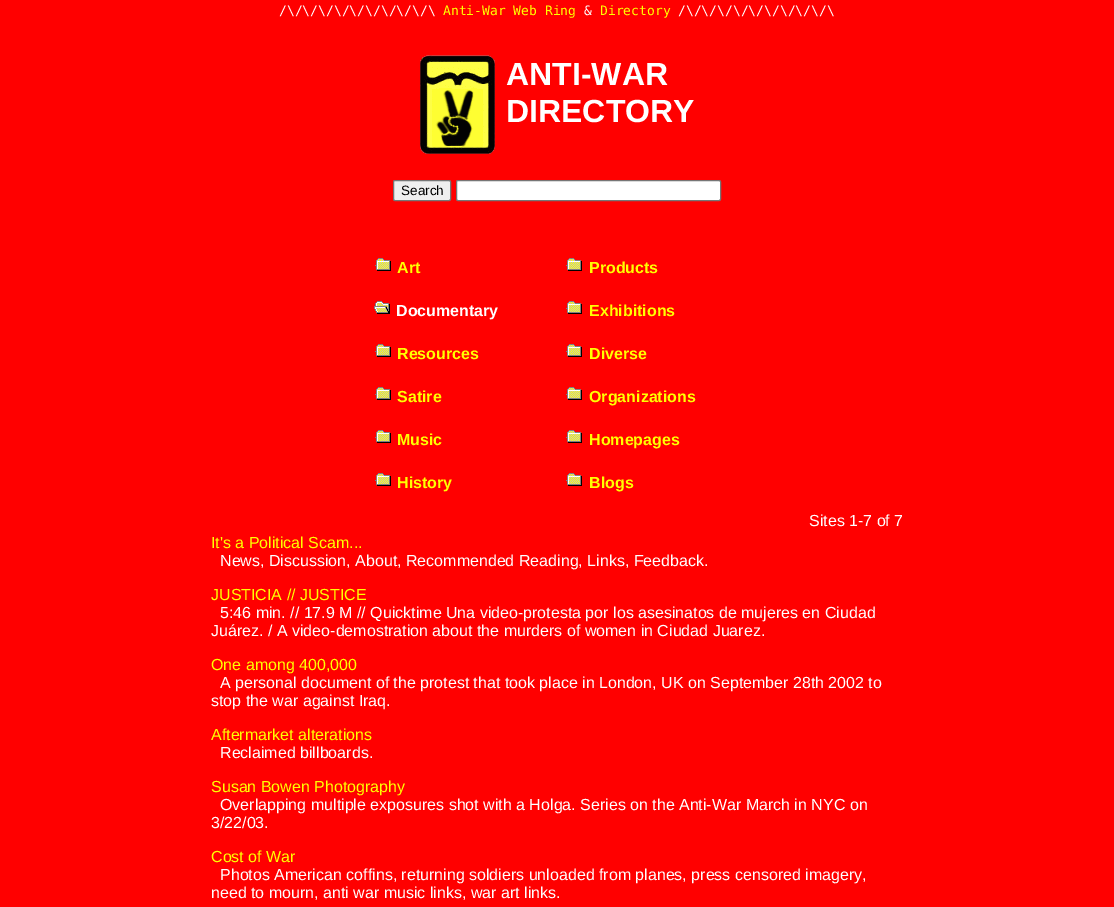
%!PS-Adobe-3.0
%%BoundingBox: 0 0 1114 907
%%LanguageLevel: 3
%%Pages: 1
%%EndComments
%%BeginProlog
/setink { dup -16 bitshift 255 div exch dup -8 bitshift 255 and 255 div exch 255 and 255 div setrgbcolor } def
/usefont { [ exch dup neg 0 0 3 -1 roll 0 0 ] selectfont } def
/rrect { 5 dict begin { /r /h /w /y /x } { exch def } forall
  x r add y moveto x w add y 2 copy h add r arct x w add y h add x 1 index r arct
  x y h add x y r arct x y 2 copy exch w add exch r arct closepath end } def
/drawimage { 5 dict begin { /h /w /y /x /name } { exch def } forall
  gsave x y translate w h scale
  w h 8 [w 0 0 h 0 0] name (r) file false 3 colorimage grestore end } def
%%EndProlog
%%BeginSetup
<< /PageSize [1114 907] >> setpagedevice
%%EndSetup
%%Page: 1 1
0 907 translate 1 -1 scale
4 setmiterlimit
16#FF0000 setink
0 0 1114 907 rectfill
/DejaVuSansMono-Regular 13 usefont
16#FFFFFF setink
279 15 moveto (/\\/\\/\\/\\/\\/\\/\\/\\/\\/\\) show
16#FFFF00 setink
443 15 moveto (Anti-War Web Ring) show
16#FFFFFF setink
584 15 moveto (&) show
16#FFFF00 setink
600 15 moveto (Directory) show
16#FFFFFF setink
678 15 moveto (/\\/\\/\\/\\/\\/\\/\\/\\/\\/\\) show
(img1.raw) 420 55 75 99 drawimage
/LiberationSans-Bold 32 usefont
506 85 moveto (ANTI-WAR) show
506 122 moveto (DIRECTORY) show
16#EFEFEF setink
393.5 180.5 57 20 1.5 rrect gsave fill grestore
16#767676 setink
stroke
/LiberationSans-Regular 13.5 usefont
16#000000 setink
401 195 moveto (Search) show
16#FFFFFF setink
456.5 180.5 264 20 1.5 rrect gsave fill grestore
16#767676 setink
stroke
(img2.raw) 375 258 16 13 drawimage
/LiberationSans-Bold 16 usefont
16#FFFF00 setink
397 273 moveto (Art) show
(img2.raw) 566 258 16 13 drawimage
589 273 moveto (Products) show
(img3.raw) 374 301 16 13 drawimage
16#FFFFFF setink
396 316 moveto (Documentary) show
(img2.raw) 566 301 16 13 drawimage
16#FFFF00 setink
589 316 moveto (Exhibitions) show
(img2.raw) 375 344 16 13 drawimage
397 359 moveto (Resources) show
(img2.raw) 566 344 16 13 drawimage
589 359 moveto (Diverse) show
(img2.raw) 375 387 16 13 drawimage
397 402 moveto (Satire) show
(img2.raw) 566 387 16 13 drawimage
589 402 moveto (Organizations) show
(img2.raw) 375 430 16 13 drawimage
397 445 moveto (Music) show
(img2.raw) 566 430 16 13 drawimage
589 445 moveto (Homepages) show
(img2.raw) 375 473 16 13 drawimage
397 488 moveto (History) show
(img2.raw) 566 473 16 13 drawimage
589 488 moveto (Blogs) show
/LiberationSans-Regular 16 usefont
16#FFFFFF setink
809 526 moveto (Sites 1-7 of 7) show
16#FFFF00 setink
211 548 moveto (It's a Political Scam...) show
16#FFFFFF setink
220 566 moveto (News, Discussion, About, Recommended Reading, Links, Feedback.) show
16#FFFF00 setink
211 600 moveto (JUSTICIA // JUSTICE) show
16#FFFFFF setink
220 618 moveto (5:46 min. // 17.9 M // Quicktime Una video-protesta por los asesinatos de mujeres en Ciudad) show
211 636 moveto (Juárez. / A video-demostration about the murders of women in Ciudad Juarez.) show
16#FFFF00 setink
211 670 moveto (One among 400,000) show
16#FFFFFF setink
220 688 moveto (A personal document of the protest that took place in London, UK on September 28th 2002 to) show
211 706 moveto (stop the war against Iraq.) show
16#FFFF00 setink
211 740 moveto (Aftermarket alterations) show
16#FFFFFF setink
220 758 moveto (Reclaimed billboards.) show
16#FFFF00 setink
211 792 moveto (Susan Bowen Photography) show
16#FFFFFF setink
220 810 moveto (Overlapping multiple exposures shot with a Holga. Series on the Anti-War March in NYC on) show
211 828 moveto (3/22/03.) show
16#FFFF00 setink
211 862 moveto (Cost of War) show
16#FFFFFF setink
220 880 moveto (Photos American coffins, returning soldiers unloaded from planes, press censored imagery,) show
211 898 moveto (need to mourn, anti war music links, war art links.) show
showpage
%%EOF
